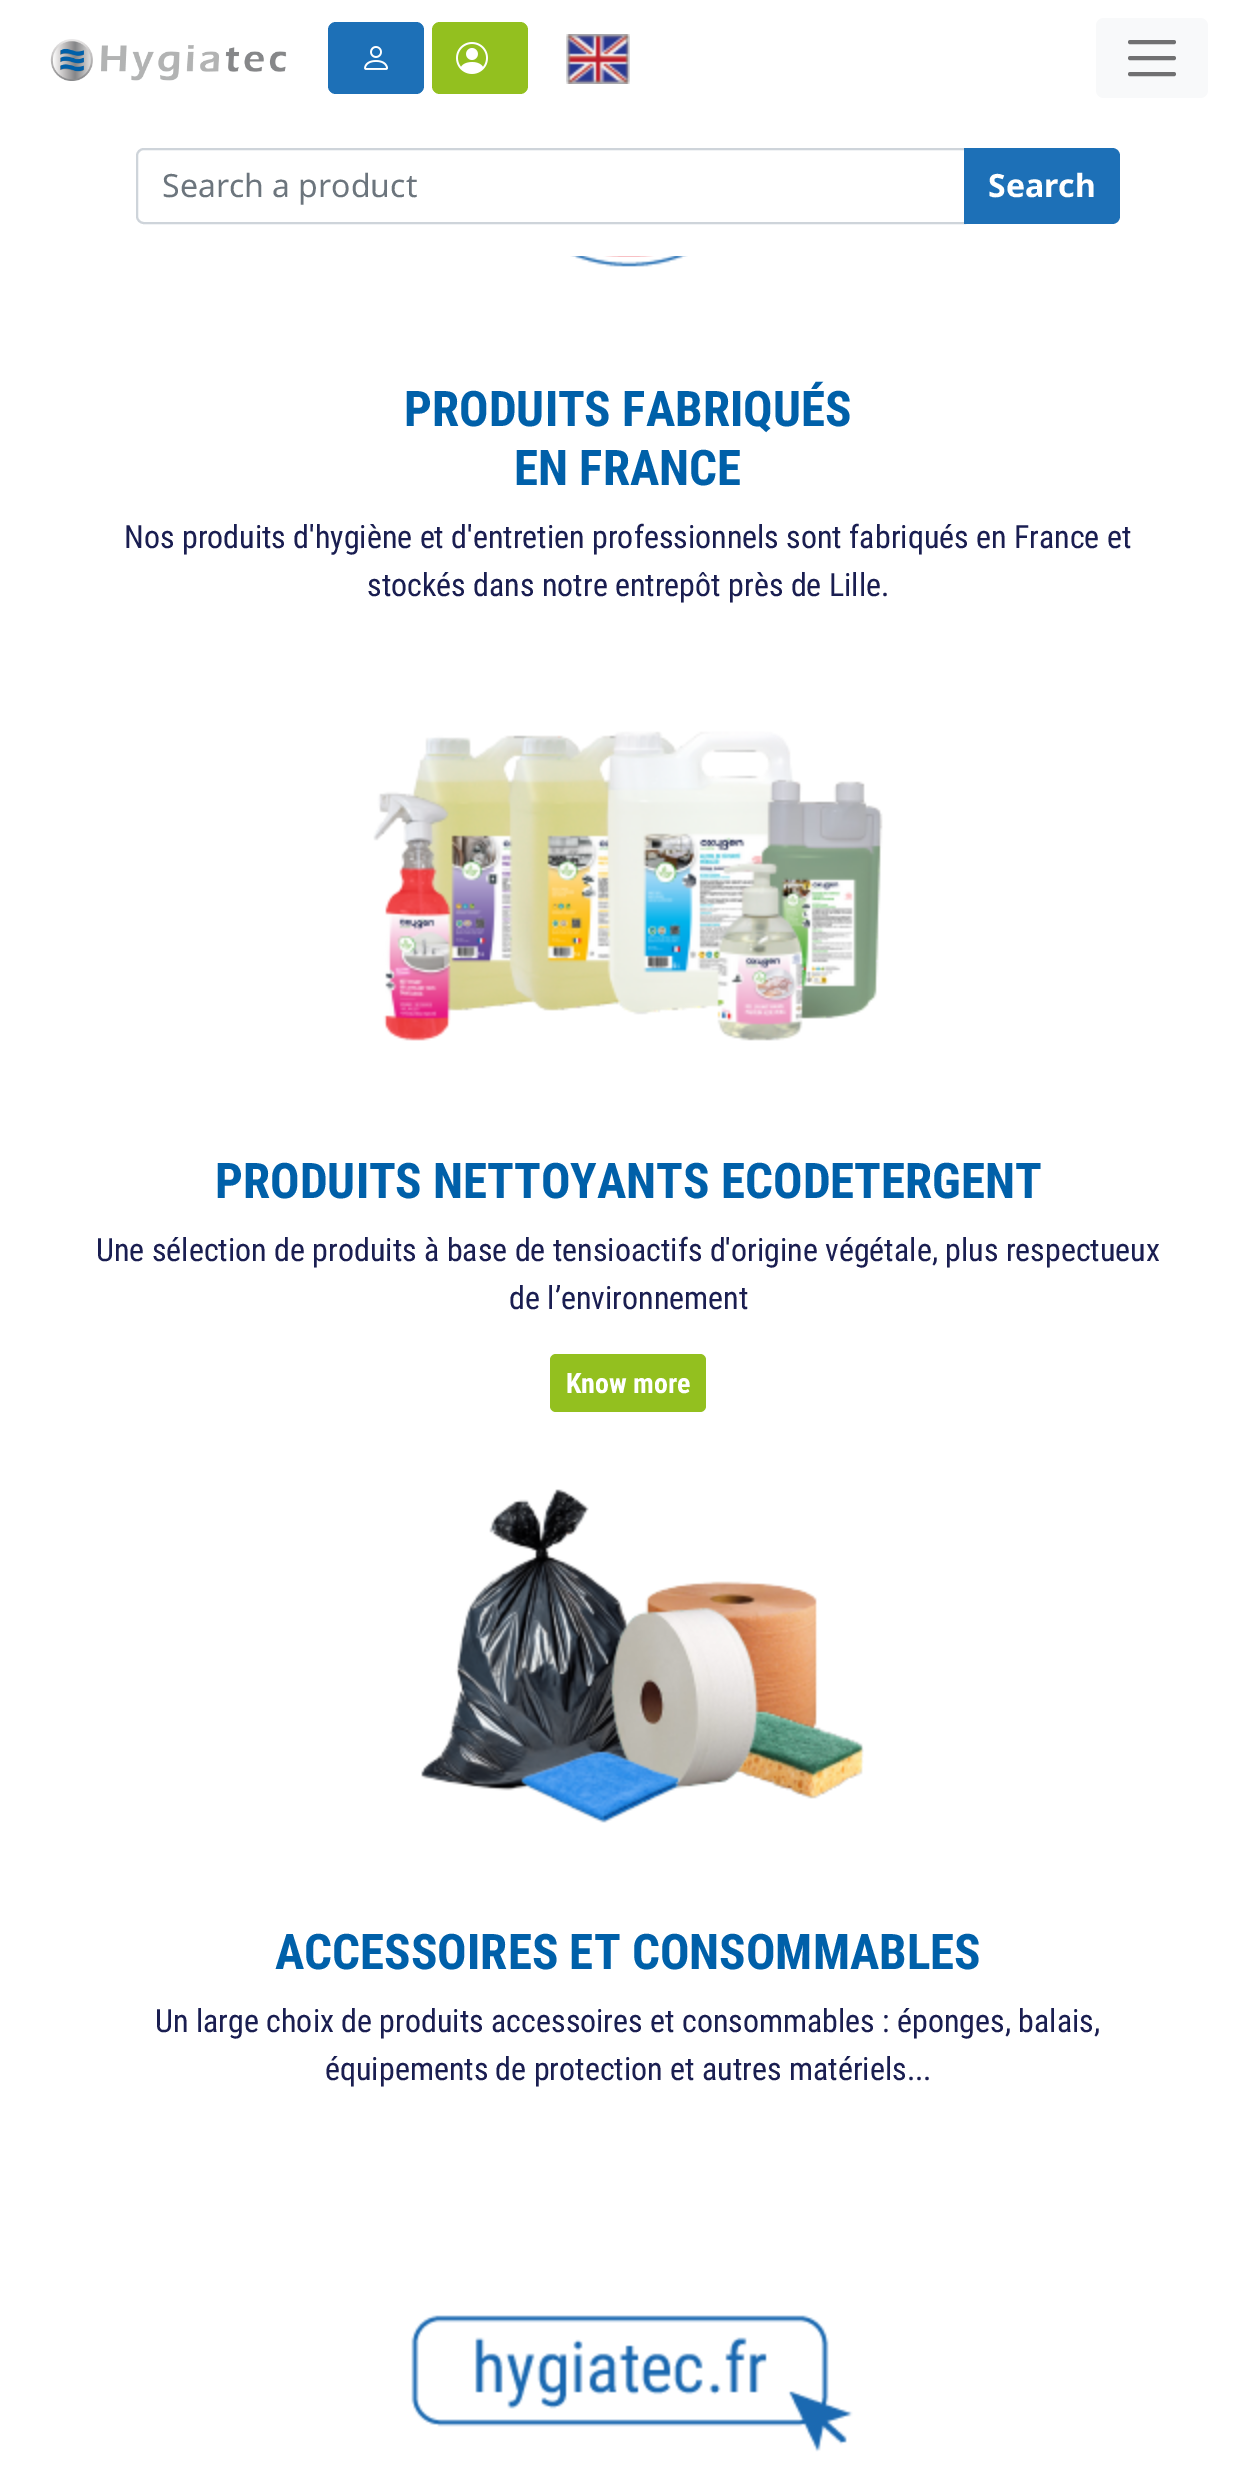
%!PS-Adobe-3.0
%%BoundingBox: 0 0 1255 2481
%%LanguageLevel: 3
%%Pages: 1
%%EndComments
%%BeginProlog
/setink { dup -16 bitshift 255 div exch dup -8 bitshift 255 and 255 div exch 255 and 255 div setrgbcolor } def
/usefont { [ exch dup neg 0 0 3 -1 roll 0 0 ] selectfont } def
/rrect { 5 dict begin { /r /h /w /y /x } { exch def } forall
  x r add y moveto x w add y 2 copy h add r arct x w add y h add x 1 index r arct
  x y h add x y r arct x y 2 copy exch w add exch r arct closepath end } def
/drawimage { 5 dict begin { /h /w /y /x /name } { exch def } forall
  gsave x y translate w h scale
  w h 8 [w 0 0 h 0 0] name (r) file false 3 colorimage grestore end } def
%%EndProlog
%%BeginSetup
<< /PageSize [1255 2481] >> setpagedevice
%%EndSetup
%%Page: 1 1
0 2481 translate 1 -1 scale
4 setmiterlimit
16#FFFFFF setink
0 0 1255 2481 rectfill
(img1.raw) 50 39 237 42 drawimage
16#1D70B7 setink
328 22 96 72 8 rrect fill
(img2.raw) 364 46 24 24 drawimage
16#93C01F setink
432 22 96 72 8 rrect fill
(img3.raw) 456 42 32 32 drawimage
(img4.raw) 566 34 64 50 drawimage
16#F8F9FA setink
1096 18 112 80 8 rrect fill
16#707071 setink
4 setlinewidth
1 setlinecap
1130 42 moveto 1174 42 lineto 1130 58 moveto 1174 58 lineto 1130 74 moveto 1174 74 lineto stroke
16#CED4DA setink
2 setlinewidth
0 setlinecap
144 149 moveto 965 149 lineto 965 223 lineto 144 223 lineto 140 223 137 220 137 216 curveto 137 156 lineto 137 152 140 149 144 149 curveto closepath stroke
/NotoSans-Regular 32 usefont
16#6C757D setink
162 197 moveto (Search a product) show
16#1D70B7 setink
964 148 moveto 1112 148 lineto 1116.5 148 1120 151.5 1120 156 curveto 1120 216 lineto 1120 220.5 1116.5 224 1112 224 curveto 964 224 lineto closepath fill
/NotoSans-Bold 32 usefont
16#FFFFFF setink
988 197 moveto (Search) show
(img5.raw) 570 256 118 11 drawimage
/RobotoCondensed-Bold 49.1 usefont
16#0060A9 setink
404 426 moveto (PRODUITS FABRIQUÉS) show
514 485 moveto (EN FRANCE) show
/RobotoCondensed-Regular 32 usefont
16#1A1E51 setink
124 548 moveto (Nos produits d'hygiène et d'entretien professionnels sont fabriqués en France et) show
367 596 moveto (stockés dans notre entrepôt près de Lille.) show
(img6.raw) 373 731 510 310 drawimage
/RobotoCondensed-Bold 49.1 usefont
16#0060A9 setink
215 1198 moveto (PRODUITS NETTOYANTS ECODETERGENT) show
/RobotoCondensed-Regular 32 usefont
16#1A1E51 setink
96 1261 moveto (Une sélection de produits à base de tensioactifs d'origine végétale, plus respectueux) show
509 1309 moveto (de l’environnement) show
16#93C01F setink
550 1354 156 58 6 rrect fill
/RobotoCondensed-Bold 28 usefont
16#FFFFFF setink
566 1393 moveto (Know more) show
(img7.raw) 421 1489 443 334 drawimage
/RobotoCondensed-Bold 49.1 usefont
16#0060A9 setink
275 1969 moveto (ACCESSOIRES ET CONSOMMABLES) show
/RobotoCondensed-Regular 32 usefont
16#1A1E51 setink
155 2032 moveto (Un large choix de produits accessoires et consommables : éponges, balais,) show
325 2080 moveto (équipements de protection et autres matériels...) show
(img8.raw) 411 2315 442 137 drawimage
showpage
%%EOF
